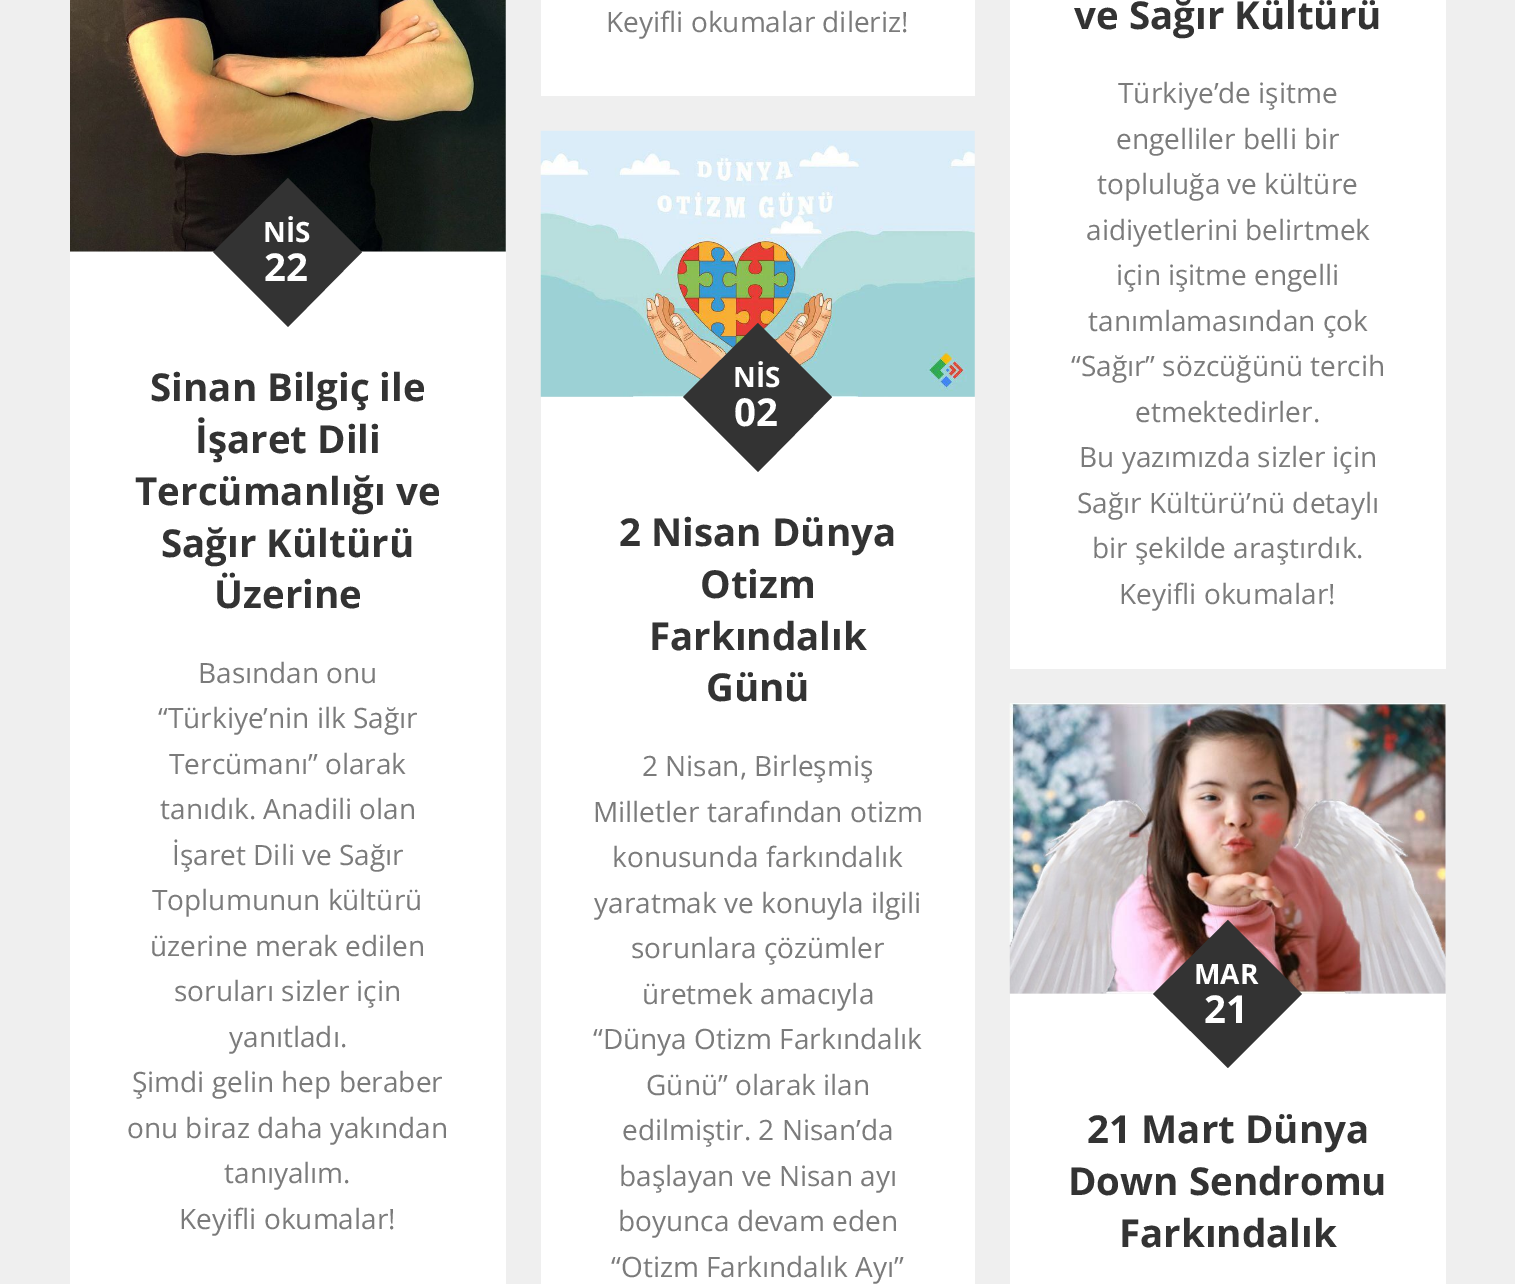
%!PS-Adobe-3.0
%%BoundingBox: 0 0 1515 1284
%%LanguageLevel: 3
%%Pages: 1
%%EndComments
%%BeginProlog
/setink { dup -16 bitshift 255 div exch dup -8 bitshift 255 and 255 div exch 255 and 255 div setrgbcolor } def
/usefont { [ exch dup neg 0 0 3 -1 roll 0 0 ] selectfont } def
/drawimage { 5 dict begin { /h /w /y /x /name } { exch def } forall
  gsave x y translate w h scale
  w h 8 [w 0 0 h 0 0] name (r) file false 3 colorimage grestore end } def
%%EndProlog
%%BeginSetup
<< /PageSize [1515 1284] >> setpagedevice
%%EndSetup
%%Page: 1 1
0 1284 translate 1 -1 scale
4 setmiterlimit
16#EFEFEF setink
0 0 1515 1284 rectfill
16#FFFFFF setink
541 0 434 96 rectfill
/OpenSans-Regular 28 usefont
16#7B7B7B setink
606 32 moveto (Keyifli okumalar dileriz!) show
16#FFFFFF setink
1010 0 436 669 rectfill
/OpenSans-Bold 38.5 usefont
16#333333 setink
1074 29 moveto (ve Sağır Kültürü) show
/OpenSans-Regular 28 usefont
16#7B7B7B setink
[
    [(Türkiye’de işitme) 1118 103]
    [(engelliler belli bir) 1116 149]
    [(topluluğa ve kültüre) 1097 194]
    [(aidiyetlerini belirtmek) 1086 240]
    [(için işitme engelli) 1116 285]
    [(tanımlamasından çok) 1088 331]
    [(“Sağır” sözcüğünü tercih) 1071 376]
    [(etmektedirler.) 1135 422]
    [(Bu yazımızda sizler için) 1079 467]
    [(Sağır Kültürü’nü detaylı) 1077 513]
    [(bir şekilde araştırdık.) 1092 558]
    [(Keyifli okumalar!) 1119 604]
] { aload pop moveto show } forall
(img1.raw) 70 0 436 252 drawimage
16#FFFFFF setink
70 252 436 1032 rectfill
16#333333 setink
213 252 moveto 288 178 lineto 362 252 lineto 288 327 lineto closepath fill
/OpenSans-Bold 28 usefont
16#FFFFFF setink
263 242 moveto (NİS) show
/OpenSans-Bold 38.5 usefont
264 281 moveto (22) show
16#333333 setink
[
    [(Sinan Bilgiç ile) 150 401]
    [(İşaret Dili) 195 453]
    [(Tercümanlığı ve) 135 505]
    [(Sağır Kültürü) 161 557]
    [(Üzerine) 214 608]
] { aload pop moveto show } forall
/OpenSans-Regular 28 usefont
16#7B7B7B setink
[
    [(Basından onu) 198 683]
    [(“Türkiye’nin ilk Sağır) 158 728]
    [(Tercümanı” olarak) 169 774]
    [(tanıdık. Anadili olan) 160 819]
    [(İşaret Dili ve Sağır) 172 865]
    [(Toplumunun kültürü) 152 910]
    [(üzerine merak edilen) 150 956]
    [(soruları sizler için) 174 1001]
    [(yanıtladı.) 229 1047]
    [(Şimdi gelin hep beraber) 132 1092]
    [(onu biraz daha yakından) 127 1138]
    [(tanıyalım.) 224 1183]
    [(Keyifli okumalar!) 179 1229]
] { aload pop moveto show } forall
(img2.raw) 540 130 435 267 drawimage
16#FFFFFF setink
541 397 434 887 rectfill
16#333333 setink
683 397 moveto 758 323 lineto 832 397 lineto 758 472 lineto closepath fill
/OpenSans-Bold 28 usefont
16#FFFFFF setink
733 387 moveto (NİS) show
/OpenSans-Bold 38.5 usefont
734 426 moveto (02) show
16#333333 setink
[
    [(2 Nisan Dünya) 619 546]
    [(Otizm) 700 598]
    [(Farkındalık) 649 650]
    [(Günü) 706 701]
] { aload pop moveto show } forall
/OpenSans-Regular 28 usefont
16#7B7B7B setink
[
    [(2 Nisan, Birleşmiş) 642 776]
    [(Milletler tarafından otizm) 593 822]
    [(konusunda farkındalık) 612 867]
    [(yaratmak ve konuyla ilgili) 594 913]
    [(sorunlara çözümler) 631 958]
    [(üretmek amacıyla) 642 1004]
    [(“Dünya Otizm Farkındalık) 593 1049]
    [(Günü” olarak ilan) 646 1095]
    [(edilmiştir. 2 Nisan’da) 622 1140]
    [(başlayan ve Nisan ayı) 619 1186]
    [(boyunca devam eden) 618 1231]
    [(“Otizm Farkındalık Ayı”) 611 1277]
] { aload pop moveto show } forall
(img3.raw) 1009 703 437 291 drawimage
16#FFFFFF setink
1010 994 436 290 rectfill
16#333333 setink
1153 994 moveto 1228 920 lineto 1302 994 lineto 1228 1068 lineto closepath fill
/OpenSans-Bold 28 usefont
16#FFFFFF setink
1194 984 moveto (MAR) show
/OpenSans-Bold 38.5 usefont
1204 1023 moveto (21) show
16#333333 setink
[
    [(21 Mart Dünya) 1087 1143]
    [(Down Sendromu) 1068 1195]
    [(Farkındalık) 1119 1247]
] { aload pop moveto show } forall
showpage
%%EOF
